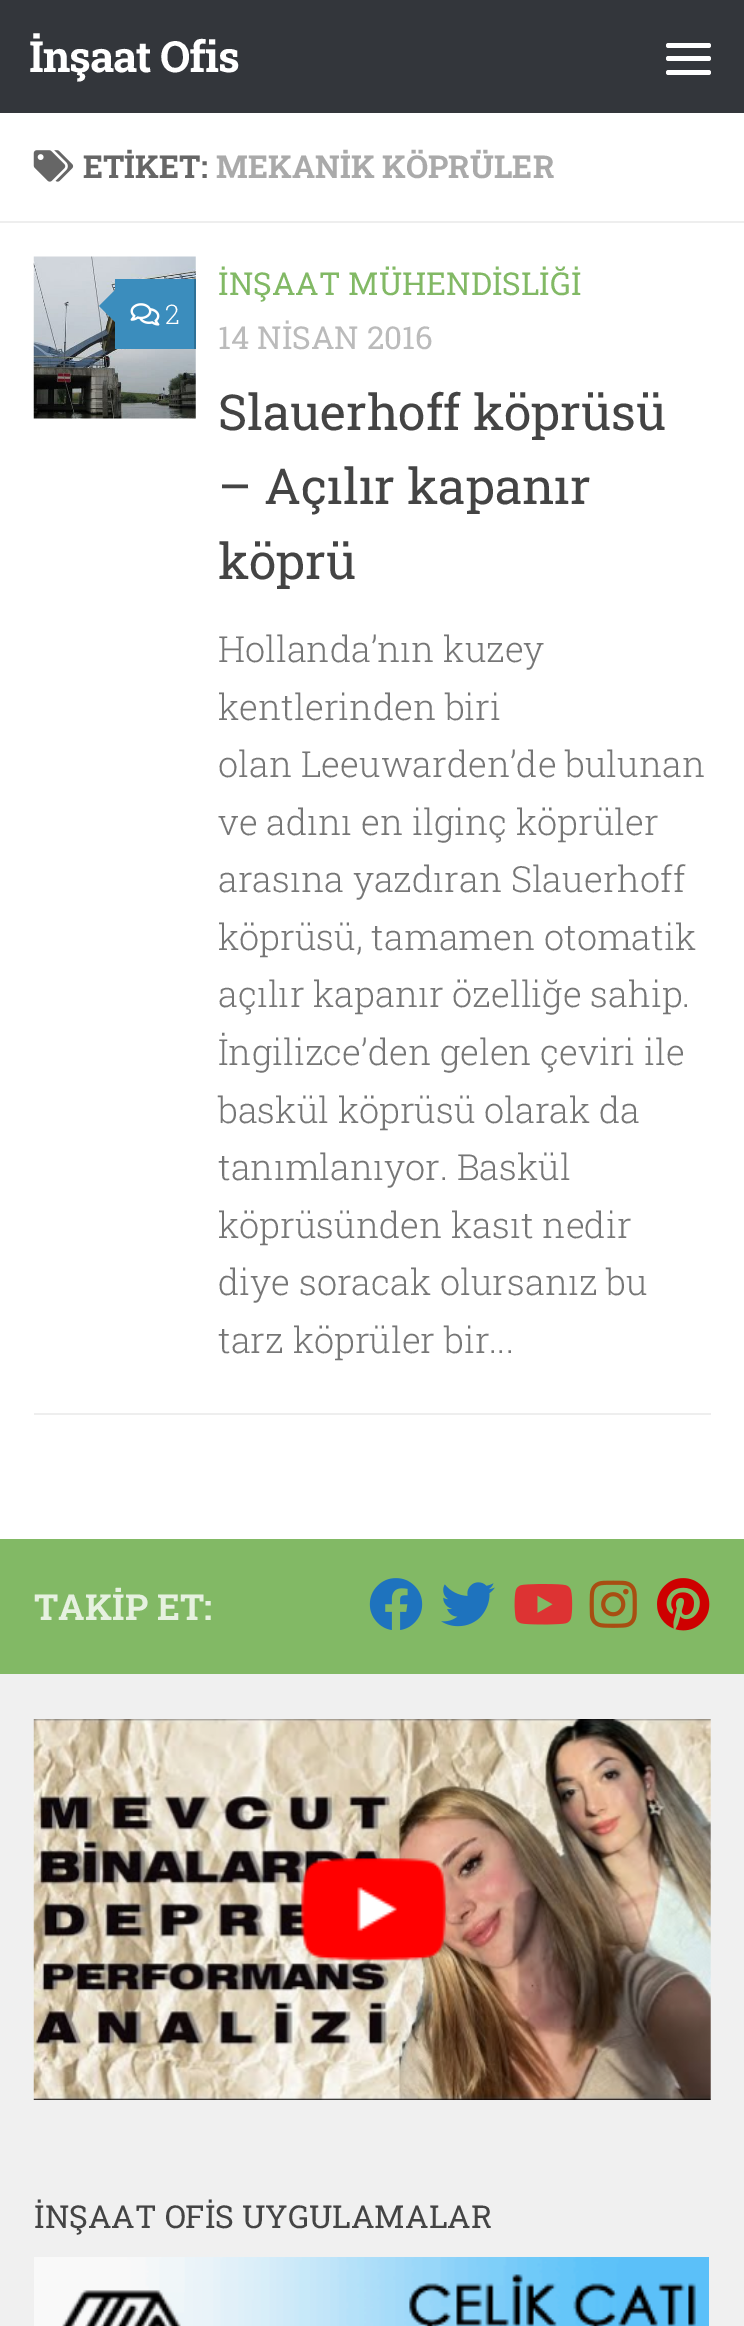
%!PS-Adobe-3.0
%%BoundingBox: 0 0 744 2326
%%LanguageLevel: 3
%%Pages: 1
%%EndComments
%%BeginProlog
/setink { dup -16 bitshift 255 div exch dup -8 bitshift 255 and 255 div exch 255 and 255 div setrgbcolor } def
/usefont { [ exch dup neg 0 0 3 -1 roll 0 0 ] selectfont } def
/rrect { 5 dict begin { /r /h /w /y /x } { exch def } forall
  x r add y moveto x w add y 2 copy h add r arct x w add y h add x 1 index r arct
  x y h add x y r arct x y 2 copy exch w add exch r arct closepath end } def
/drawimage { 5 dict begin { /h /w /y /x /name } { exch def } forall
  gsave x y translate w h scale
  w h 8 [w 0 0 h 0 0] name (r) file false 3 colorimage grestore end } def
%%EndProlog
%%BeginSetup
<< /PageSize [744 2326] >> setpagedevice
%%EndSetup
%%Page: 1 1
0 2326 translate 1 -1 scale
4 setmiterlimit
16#FFFFFF setink
0 0 744 2326 rectfill
16#33363B setink
0 0 744 113 rectfill
/RobotoSlab-Bold 43 usefont
16#FFFFFF setink
29 72 moveto -1.1 0 (İnşaat Ofis) ashow
666 43 45 5 2.5 rrect fill
666 56 45 5 2.5 rrect fill
666 70 45 5 2.5 rrect fill
16#EEEEEE setink
0 221 744 2 rectfill
(img1.raw) 33 150 41 32 drawimage
/RobotoSlab-Bold 31.5 usefont
16#666666 setink
83 178 moveto (ETİKET:) show
16#AAAAAA setink
216 178 moveto (MEKANİK KÖPRÜLER) show
16#EEEEEE setink
34 1413 677 2 rectfill
(img2.raw) 33 256 163 163 drawimage
16#3B8DBD setink
115 279 79 70 rectfill
16#2F7197 setink
194 279 2 70 rectfill
16#3B8DBD setink
119 286 moveto 119 326 lineto 99 306 lineto closepath fill
(img3.raw) 130 303 30 23 drawimage
/RobotoSlab-Light 27 usefont
16#FFFFFF setink
165 324 moveto (2) show
/RobotoSlab-Regular 31.5 usefont
16#82B965 setink
218 295 moveto (İNŞAAT MÜHENDİSLİĞİ) show
16#BBBBBB setink
218 349 moveto (14 NİSAN 2016) show
/RobotoSlab-Regular 49.5 usefont
16#444444 setink
[
    [(Slauerhoff köprüsü) 218 430]
    [(– Açılır kapanır) 218 504]
    [(köprü) 218 579]
] { aload pop moveto show } forall
/RobotoSlab-Light 36 usefont
16#767676 setink
[
    [(Hollanda’nın kuzey) 218 662]
    [(kentlerinden biri) 218 720]
    [(olan Leeuwarden’de bulunan) 218 777]
    [(ve adını en ilginç köprüler) 218 835]
    [(arasına yazdıran Slauerhoff) 218 892]
    [(köprüsü, tamamen otomatik) 218 950]
    [(açılır kapanır özelliğe sahip.) 218 1007]
    [(İngilizce’den gelen çeviri ile) 218 1065]
    [(baskül köprüsü olarak da) 218 1123]
    [(tanımlanıyor. Baskül) 218 1180]
    [(köprüsünden kasıt nedir) 218 1238]
    [(diye soracak olursanız bu) 218 1295]
    [(tarz köprüler bir...) 218 1353]
] { aload pop moveto show } forall
16#F0F0F0 setink
0 1674 744 652 rectfill
16#82B965 setink
0 1539 744 135 rectfill
/RobotoSlab-Bold 36 usefont
16#E6F1E0 setink
34 1620 moveto (TAKİP ET:) show
(img4.raw) 369 1578 54 52 drawimage
(img5.raw) 441 1582 54 45 drawimage
(img6.raw) 514 1584 59 41 drawimage
(img7.raw) 589 1580 48 48 drawimage
(img8.raw) 657 1578 53 53 drawimage
(img9.raw) 33 1719 678 381 drawimage
(img10.raw) 301 1858 146 103 drawimage
/RobotoSlab-Regular 31.6 usefont
16#444444 setink
34 2228 moveto (İNŞAAT OFİS UYGULAMALAR) show
(img11.raw) 34 2257 675 69 drawimage
showpage
%%EOF
